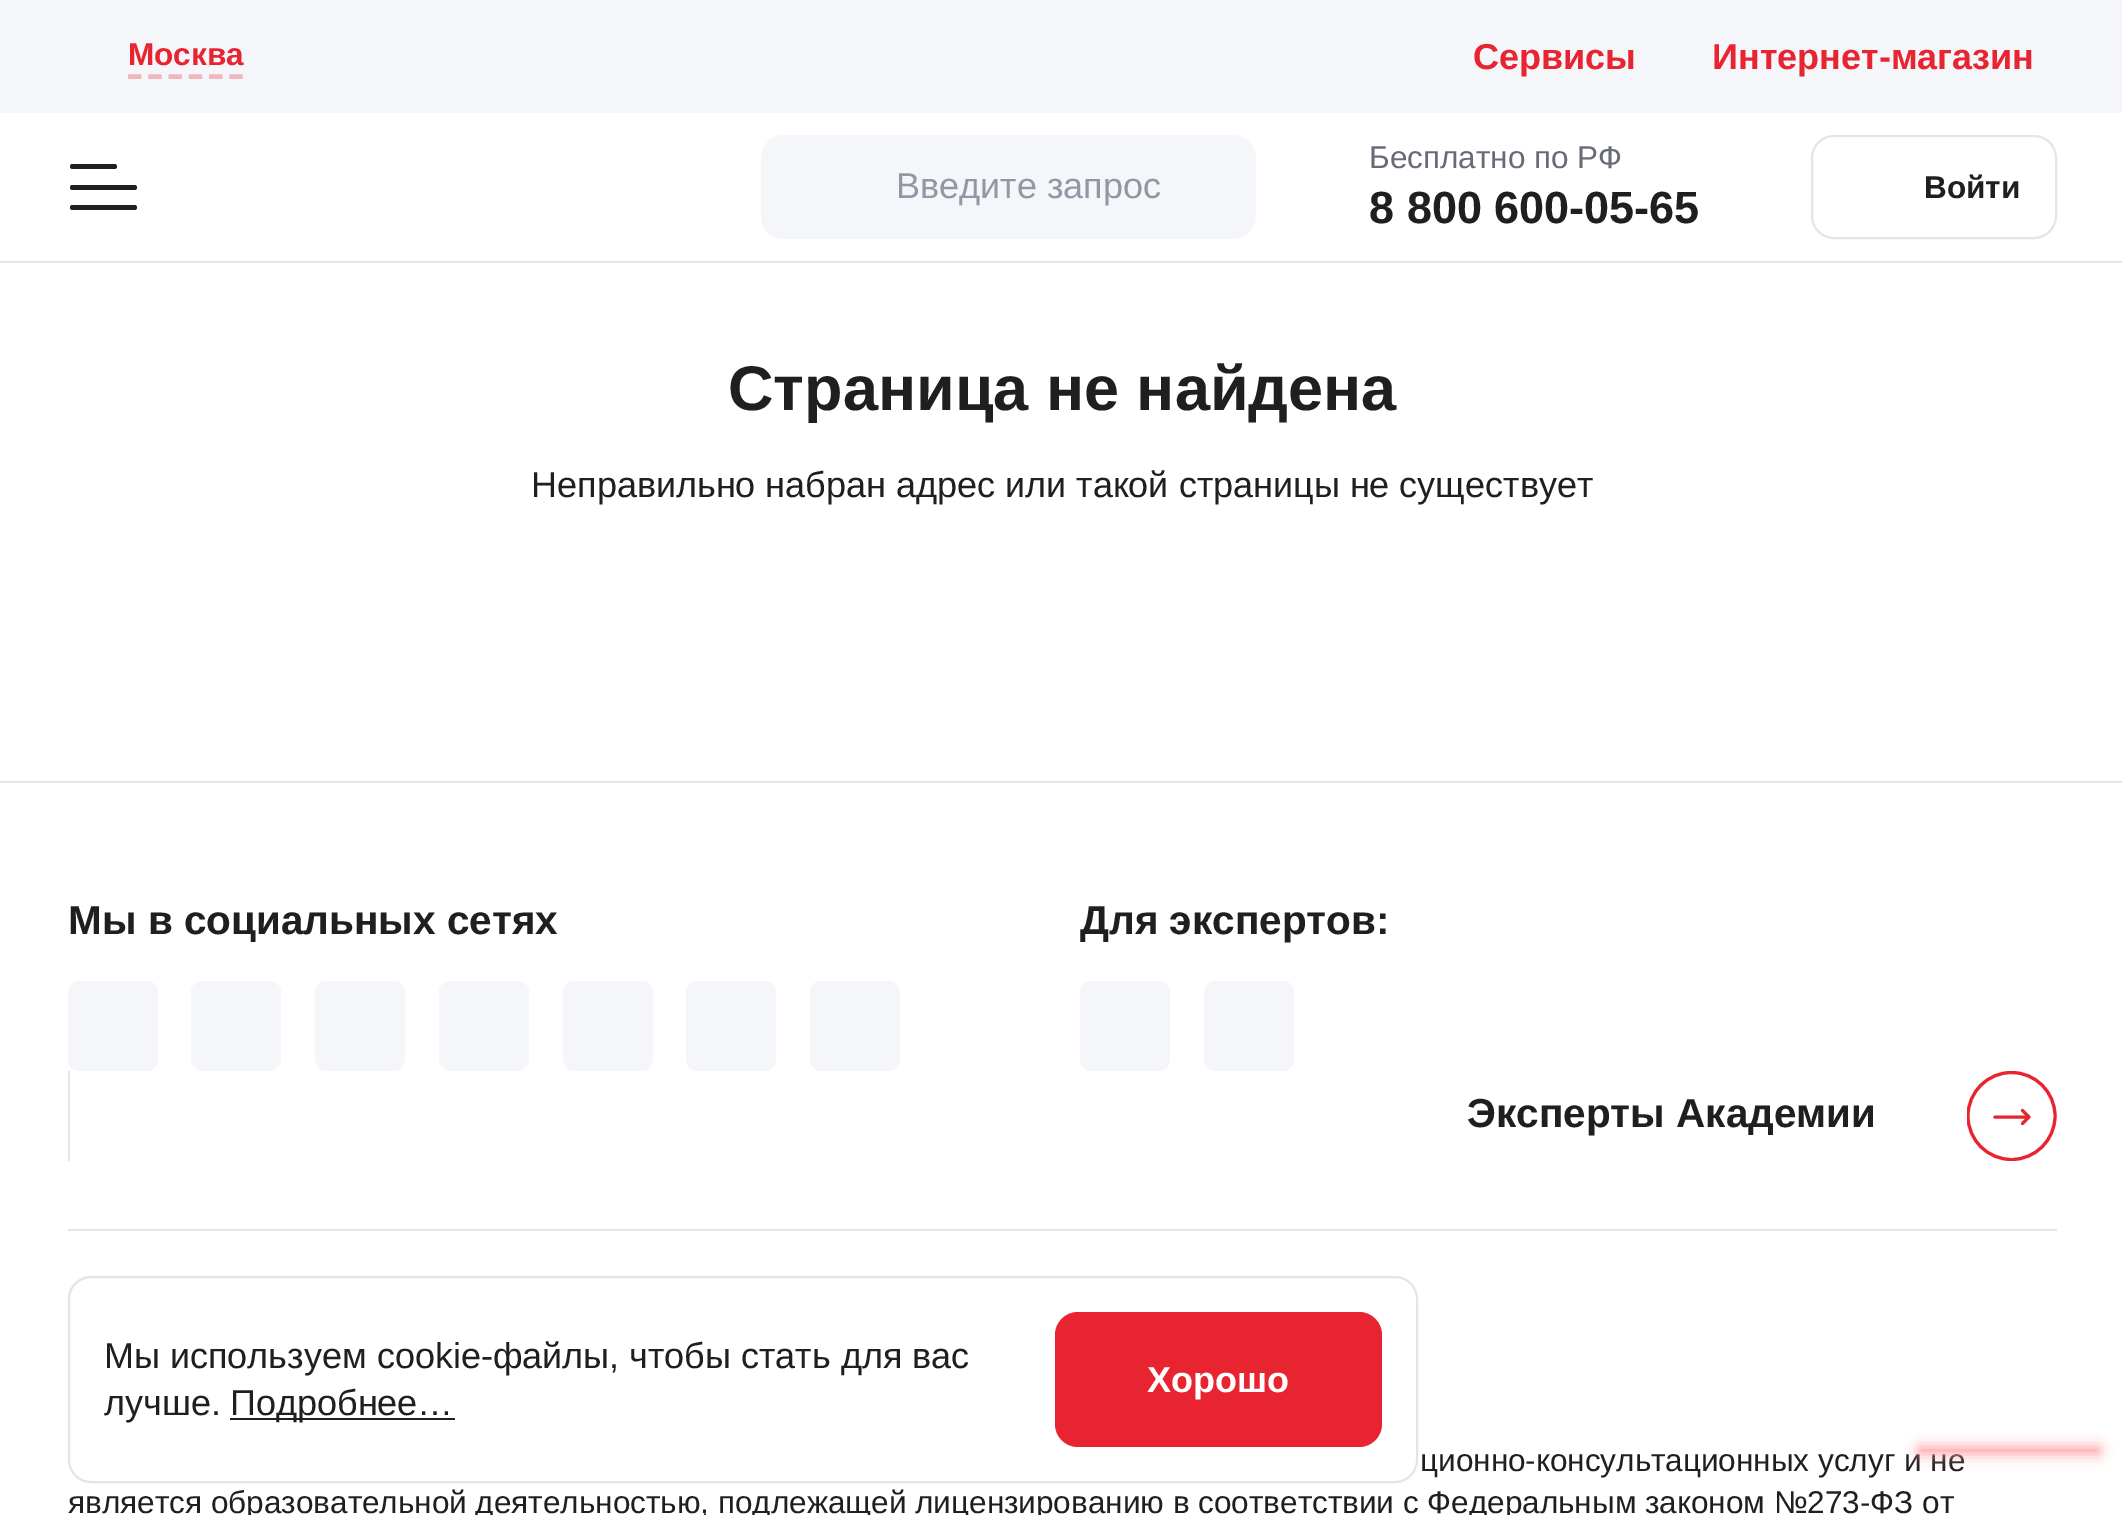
%!PS-Adobe-3.0
%%BoundingBox: 0 0 2122 1515
%%LanguageLevel: 3
%%Pages: 1
%%EndComments
%%BeginProlog
/setink { dup -16 bitshift 255 div exch dup -8 bitshift 255 and 255 div exch 255 and 255 div setrgbcolor } def
/usefont { [ exch dup neg 0 0 3 -1 roll 0 0 ] selectfont } def
/setalpha { dup .setfillconstantalpha .setstrokeconstantalpha } def
/disc { newpath 0 360 arc closepath } def
/rrect { 5 dict begin { /r /h /w /y /x } { exch def } forall
  x r add y moveto x w add y 2 copy h add r arct x w add y h add x 1 index r arct
  x y h add x y r arct x y 2 copy exch w add exch r arct closepath end } def
/softshadow { 12 dict begin { /a /b /q /h /w /y /x } { exch def } forall gsave /was 0 def
  9 -2 -9 { dup b mul 4 div /e exch def 1 sub .425 mul 2.718 exch exp 1 add a .99 .min exch div /now exch def
    1 1 now sub 1 was sub div sub setalpha /was now def
    w h .min e 2 mul add 0 gt { x e sub y e sub w e 2 mul add h e 2 mul add
      q e add b .6 mul add w h .min 2 div e add .min 0 .max rrect fill } if } for grestore end } def
%%EndProlog
%%BeginSetup
<< /PageSize [2122 1515] /PageUsesTransparency true >> setpagedevice
%%EndSetup
%%Page: 1 1
0 .pushpdf14devicefilter
0 1515 translate 1 -1 scale
4 setmiterlimit
16#FFFFFF setink
0 0 2122 1515 rectfill
16#F5F6FA setink
0 0 2122 113 rectfill
16#F1B7BD setink
4.5 setlinewidth
[13.5 6.75] 0 setdash
128 76.5 moveto 243 76.5 lineto stroke
/LiberationSans-Bold 31.5 usefont
16#E72430 setink
128 65 moveto (Москва) show
/LiberationSans-Bold 36 usefont
1473 69 moveto (Сервисы) show
1712 69 moveto (Интернет-магазин) show
16#E1E5EE setink
0 261 2122 2 rectfill
16#1F1F1F setink
70 185 67 5 2.5 rrect fill
70 164 47 5 2.5 rrect fill
70 205 67 5 2.5 rrect fill
16#F5F6FA setink
761 135 495 104 23 rrect fill
/LiberationSans-Regular 36 usefont
16#9497A3 setink
896 198 moveto (Введите запрос) show
/LiberationSans-Regular 31.5 usefont
16#676B77 setink
1369 168 moveto (Бесплатно по РФ) show
/LiberationSans-Bold 45 usefont
16#1F1F1F setink
1369 223 moveto (8 800 600-05-65) show
16#E1E5EE setink
2 setlinewidth
[] 0 setdash
1812 136 244 102 22 rrect stroke
/LiberationSans-Bold 31.5 usefont
16#1F1F1F setink
1924 198 moveto (Войти) show
/LiberationSans-Bold 63 usefont
728 410 moveto (Страница не найдена) show
/LiberationSans-Regular 36 usefont
531 497 moveto (Неправильно набран адрес или такой страницы не существует) show
16#E1E5EE setink
0 781 2122 2 rectfill
/LiberationSans-Bold 40.5 usefont
16#1F1F1F setink
68 934 moveto (Мы в социальных сетях) show
16#F5F6FA setink
68 981 90 90 11 rrect fill
191 981 90 90 11 rrect fill
315 981 90 90 11 rrect fill
439 981 90 90 11 rrect fill
563 981 90 90 11 rrect fill
686 981 90 90 11 rrect fill
810 981 90 90 11 rrect fill
16#1F1F1F setink
1080 934 moveto (Для экспертов:) show
16#F5F6FA setink
1080 981 90 90 11 rrect fill
1204 981 90 90 11 rrect fill
16#E1E5EE setink
68 1071 2 90 rectfill
16#1F1F1F setink
1467 1127 moveto (Эксперты Академии) show
gsave
1967 1071 90 90 rectclip
16#E72430 setink
3.1 setlinewidth
2011.5 1116 43.5 disc stroke
grestore
16#E72430 setink
3.1 setlinewidth
1 setlinecap
1 setlinejoin
1995 1117 moveto 2029 1117 lineto 2022.5 1110.5 moveto 2029 1117 lineto 2022.5 1123.5 lineto stroke
16#E1E5EE setink
68 1229 1989 2 rectfill
/LiberationSans-Regular 31.5 usefont
16#1F1F1F setink
1420 1471 moveto (ционно-консультационных услуг и не) show
68 1513 moveto (является образовательной деятельностью, подлежащей лицензированию в соответствии с Федеральным законом №273-ФЗ от) show
16#E1E5EE setink
2 setlinewidth
0 setlinecap
0 setlinejoin
69 1277 1348 205 22 rrect stroke
/LiberationSans-Regular 36 usefont
16#1F1F1F setink
104 1368 moveto (Мы используем cookie-файлы, чтобы стать для вас) show
104 1415 moveto (лучше.) show
230 1418 225 2 rectfill
230 1415 moveto (Подробнее…) show
16#E72430 setink
1055 1312 327 135 23 rrect fill
/LiberationSans-Bold 36 usefont
16#FFFFFF setink
1147 1392 moveto (Хорошо) show
16#FF9EA2 setink
1919 1447 180 7 3.5 7 1 softshadow
.poppdf14devicefilter showpage
%%EOF
